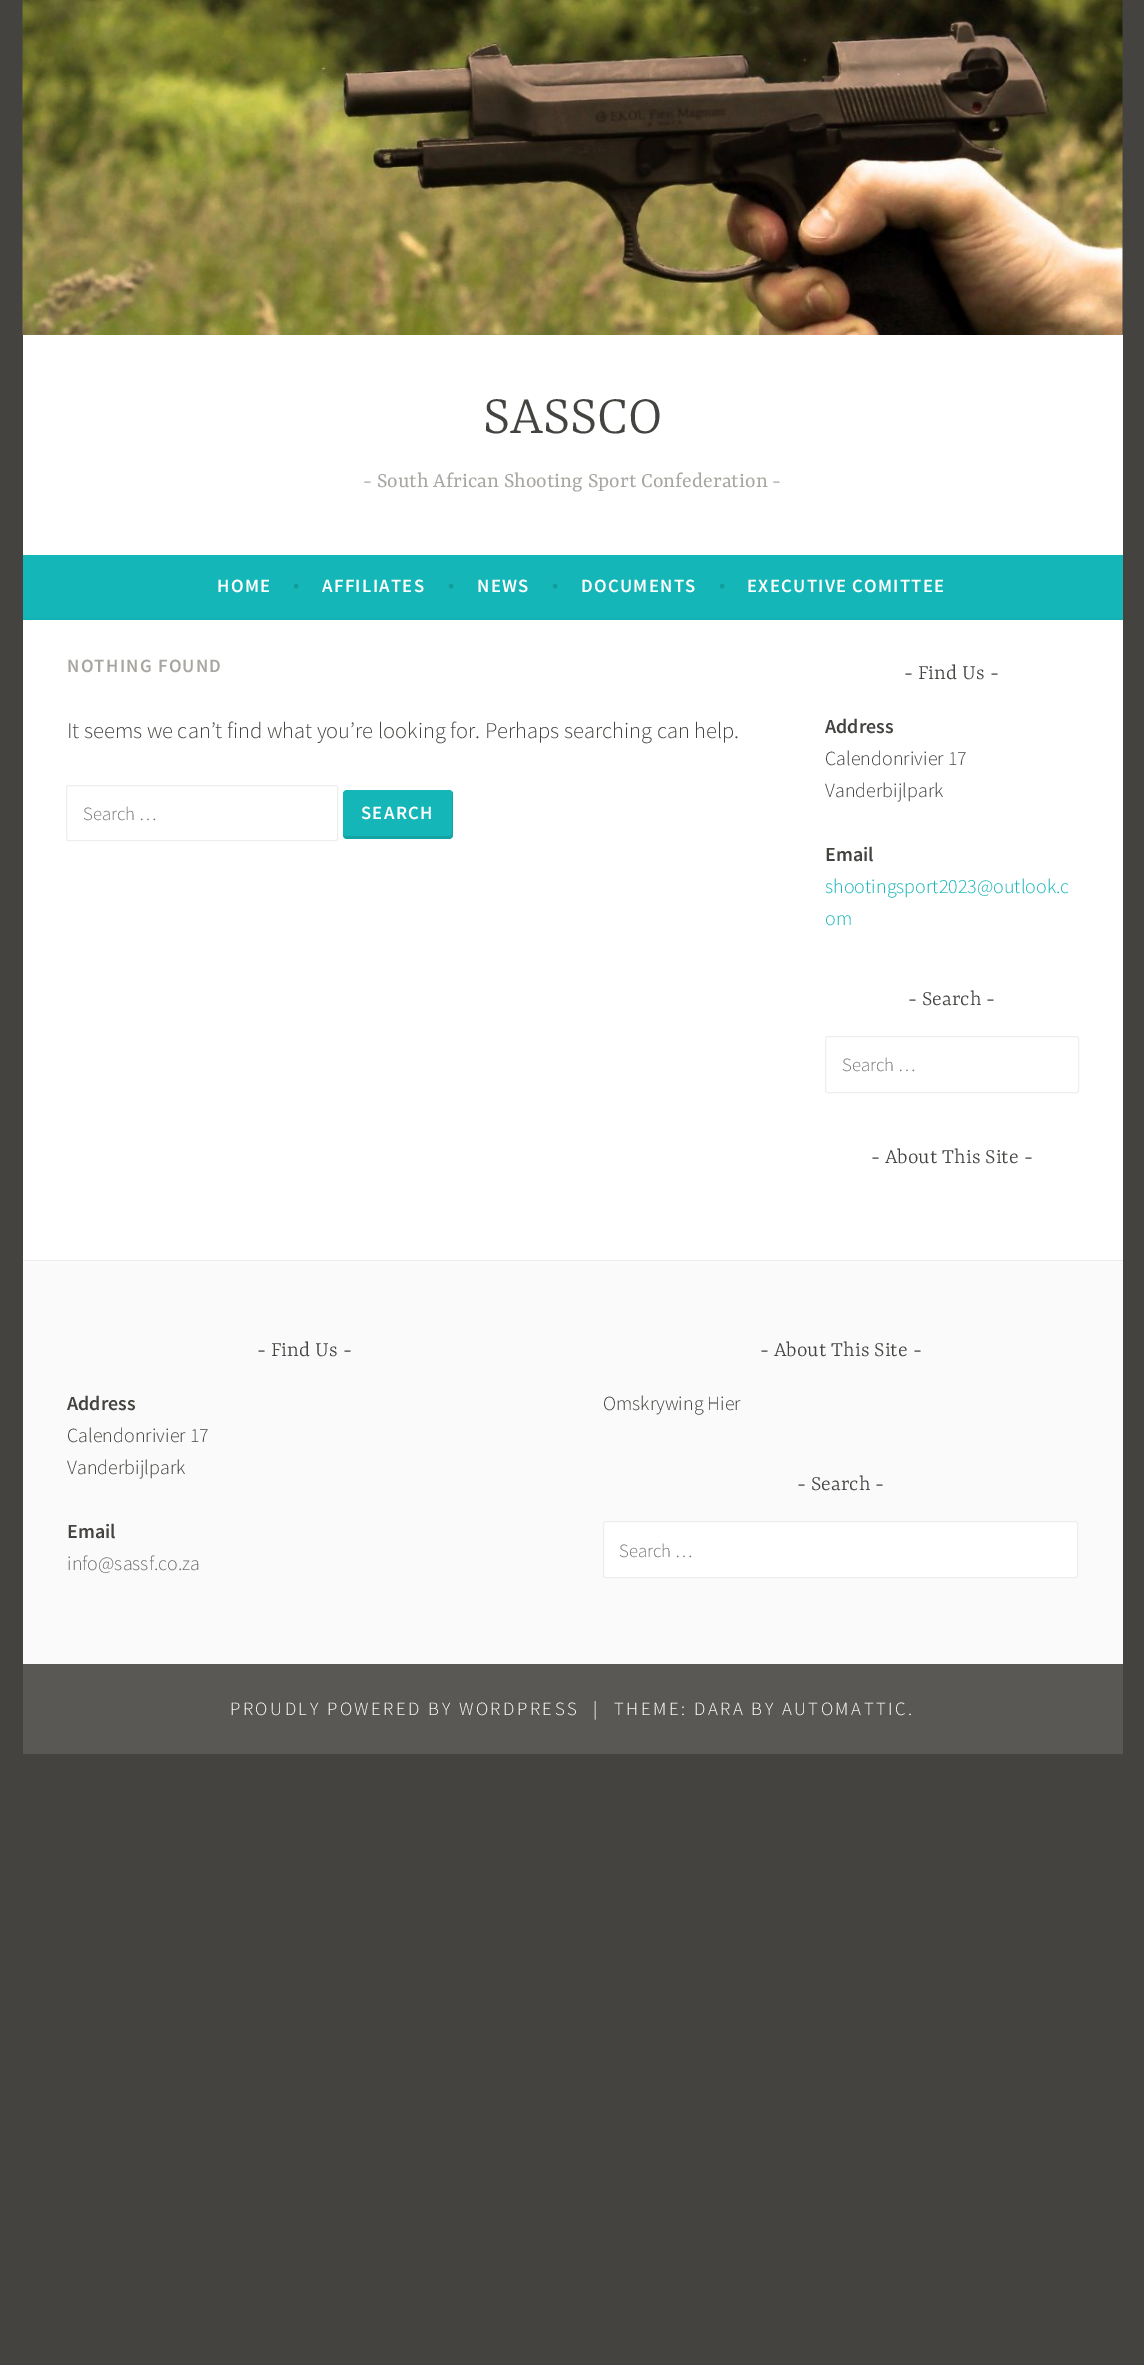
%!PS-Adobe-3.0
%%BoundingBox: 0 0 1144 2365
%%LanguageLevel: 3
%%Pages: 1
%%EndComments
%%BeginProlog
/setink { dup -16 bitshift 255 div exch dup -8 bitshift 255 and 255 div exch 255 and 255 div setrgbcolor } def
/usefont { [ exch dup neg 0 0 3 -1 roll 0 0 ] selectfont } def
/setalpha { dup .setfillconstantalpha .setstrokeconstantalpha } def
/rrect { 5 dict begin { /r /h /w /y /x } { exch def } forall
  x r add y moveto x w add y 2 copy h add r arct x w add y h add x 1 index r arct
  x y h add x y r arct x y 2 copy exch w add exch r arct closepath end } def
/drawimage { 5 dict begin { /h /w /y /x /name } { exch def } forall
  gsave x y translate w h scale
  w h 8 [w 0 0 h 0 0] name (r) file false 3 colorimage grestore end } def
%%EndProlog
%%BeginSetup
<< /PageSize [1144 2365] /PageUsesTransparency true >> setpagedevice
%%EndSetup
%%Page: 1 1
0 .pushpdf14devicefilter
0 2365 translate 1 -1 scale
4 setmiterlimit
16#444340 setink
0 0 1144 2365 rectfill
(img1.raw) 22 0 1101 335 drawimage
16#FFFFFF setink
23 335 1100 220 rectfill
/Yrsa-Light 59 usefont
16#444340 setink
483 433 moveto (SASSCO) show
/Yrsa-Regular 22.5 usefont
16#A8A6A1 setink
363 487 moveto (- South African Shooting Sport Confederation -) show
16#15B6B8 setink
23 555 1100 63 rectfill
16#14B1B2 setink
23 618 1100 2 rectfill
/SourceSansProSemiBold-SemiBold 18.75 usefont
16#FFFFFF setink
217 592 moveto 1.25 0 (HOME) ashow
/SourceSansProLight-Light 22.5 usefont
16#129B9C setink
293 592 moveto (•) show
/SourceSansProSemiBold-SemiBold 18.75 usefont
16#FFFFFF setink
322 592 moveto 1.25 0 (AFFILIATES) ashow
/SourceSansProLight-Light 22.5 usefont
16#129B9C setink
448 592 moveto (•) show
/SourceSansProSemiBold-SemiBold 18.75 usefont
16#FFFFFF setink
477 592 moveto 1.25 0 (NEWS) ashow
/SourceSansProLight-Light 22.5 usefont
16#129B9C setink
552 592 moveto (•) show
/SourceSansProSemiBold-SemiBold 18.75 usefont
16#FFFFFF setink
581 592 moveto 1.25 0 (DOCUMENTS) ashow
/SourceSansProLight-Light 22.5 usefont
16#129B9C setink
719 592 moveto (•) show
/SourceSansProSemiBold-SemiBold 18.75 usefont
16#FFFFFF setink
747 592 moveto 1.25 0 (EXECUTIVE COMITTEE) ashow
23 620 1100 640 rectfill
16#A8A6A1 setink
67 672 moveto 1.25 0 (NOTHING FOUND) ashow
/SourceSansProLight-Light 22.5 usefont
16#444340 setink
67 738 moveto (It seems we can’t find what you’re looking for. Perhaps searching can help.) show
16#EEEEEE setink
66.5 785.5 271 55 2 rrect stroke
/SourceSansProLight-Light 18.75 usefont
16#757575 setink
83 820 moveto (Search …) show
16#15B6B8 setink
343 790 110 49 4 rrect fill
0.1 setalpha
16#000000 setink
343 835 moveto 343 837 345 839 347 839 curveto 449 839 lineto 451 839 453 837 453 835 curveto 453 794 lineto 453 793 453 792 452 791 curveto 452 832 lineto 452 835 451 836 449 836 curveto 346 836 lineto 345 836 344 836 343 835 curveto closepath fill
/SourceSansProSemiBold-SemiBold 18.75 usefont
1 setalpha
16#FFFFFF setink
361 819 moveto 1.25 0 (SEARCH) ashow
/Yrsa-Light 22.5 usefont
16#444340 setink
904 679 moveto (- Find Us -) show
/SourceSansProSemiBold-SemiBold 20 usefont
825 733 moveto (Address) show
/SourceSansProLight-Light 20 usefont
825 765 moveto (Calendonrivier 17) show
825 797 moveto (Vanderbijlpark) show
/SourceSansProSemiBold-SemiBold 20 usefont
825 861 moveto (Email) show
/SourceSansProLight-Light 20 usefont
16#15B6B8 setink
825 893 moveto (shootingsport2023@outlook.c) show
825 925 moveto (om) show
/Yrsa-Light 22.5 usefont
16#444340 setink
908 1005 moveto (- Search -) show
16#EEEEEE setink
825.5 1036.5 253 56 2 rrect stroke
/SourceSansProLight-Light 18.75 usefont
16#757575 setink
842 1071 moveto (Search …) show
/Yrsa-Light 22.5 usefont
16#444340 setink
871 1163 moveto (- About This Site -) show
16#FAFAFA setink
23 1261 1100 403 rectfill
16#EEEEEE setink
23 1260 1100 1 rectfill
16#444340 setink
257 1356 moveto (- Find Us -) show
/SourceSansProSemiBold-SemiBold 20 usefont
67 1410 moveto (Address) show
/SourceSansProLight-Light 20 usefont
67 1442 moveto (Calendonrivier 17) show
67 1474 moveto (Vanderbijlpark) show
/SourceSansProSemiBold-SemiBold 20 usefont
67 1538 moveto (Email) show
/SourceSansProLight-Light 20 usefont
16#6D6D6D setink
67 1570 moveto (info@sassf.co.za) show
/Yrsa-Light 22.5 usefont
16#444340 setink
760 1356 moveto (- About This Site -) show
/SourceSansProLight-Light 20 usefont
603 1410 moveto (Omskrywing Hier) show
/Yrsa-Light 22.5 usefont
797 1490 moveto (- Search -) show
16#FFFFFF setink
603.5 1521.5 474 56 2 rrect gsave fill grestore
16#EEEEEE setink
stroke
/SourceSansProLight-Light 18.75 usefont
16#757575 setink
619 1557 moveto (Search …) show
16#595854 setink
23 1664 1100 90 rectfill
16#FFFFFF setink
230 1715 moveto 2.5 0 (PROUDLY POWERED BY WORDPRESS) ashow
593 1715 moveto 2.5 0 (|) ashow
614 1715 moveto 2.5 0 (THEME: DARA BY AUTOMATTIC.) ashow
.poppdf14devicefilter showpage
%%EOF
